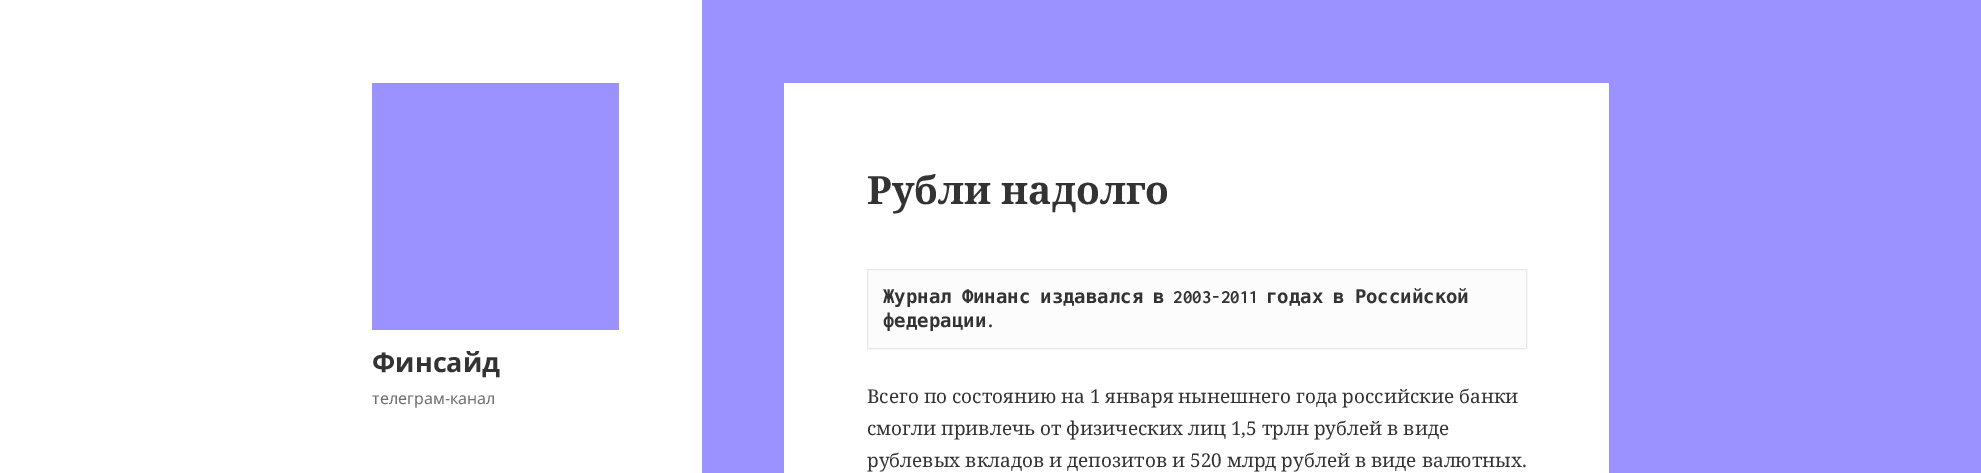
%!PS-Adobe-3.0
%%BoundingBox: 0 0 1981 473
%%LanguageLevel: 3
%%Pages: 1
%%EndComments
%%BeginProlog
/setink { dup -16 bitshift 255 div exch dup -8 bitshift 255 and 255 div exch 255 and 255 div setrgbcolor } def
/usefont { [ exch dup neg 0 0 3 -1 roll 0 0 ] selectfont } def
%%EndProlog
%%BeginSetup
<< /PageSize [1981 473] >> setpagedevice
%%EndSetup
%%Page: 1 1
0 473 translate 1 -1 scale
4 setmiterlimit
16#9C92FF setink
0 0 1981 473 rectfill
16#FFFFFF setink
0 0 702 473 rectfill
16#9C92FF setink
372 83 247 247 rectfill
/NotoSans-Bold 27 usefont
16#333333 setink
372 372 moveto (Финсайд) show
/NotoSans-Regular 16 usefont
16#707070 setink
372 404 moveto (телеграм-канал) show
16#FFFFFF setink
784 83 825 390 rectfill
/NotoSerif-Bold 39 usefont
16#333333 setink
867 204 moveto (Рубли надолго) show
16#FCFCFC setink
867.5 269.5 moveto 1526.5 269.5 lineto 1526.5 348.5 lineto 867.5 348.5 lineto closepath gsave fill grestore
16#E8E8E8 setink
stroke
/DejaVuSansMono-Bold 19 usefont
16#333333 setink
883 303 moveto -1.5 0 32 (Журнал Финанс издавался в) widthshow
/Inconsolata-Bold 19 usefont
1173 303 moveto (2003-2011) show
/DejaVuSansMono-Bold 19 usefont
1266 303 moveto -1.5 0 32 (годах в Российской) widthshow
883 327 moveto (федерации) show
/Inconsolata-Bold 19 usefont
986 327 moveto (.) show
/NotoSerif-Regular 19 usefont
[
    [(Всего по состоянию на 1 января нынешнего года российские банки) 867 403]
    [(смогли привлечь от физических лиц 1,5 трлн рублей в виде) 867 435]
    [(рублевых вкладов и депозитов и 520 млрд рублей в виде валютных.) 867 467]
] { aload pop moveto show } forall
showpage
%%EOF
